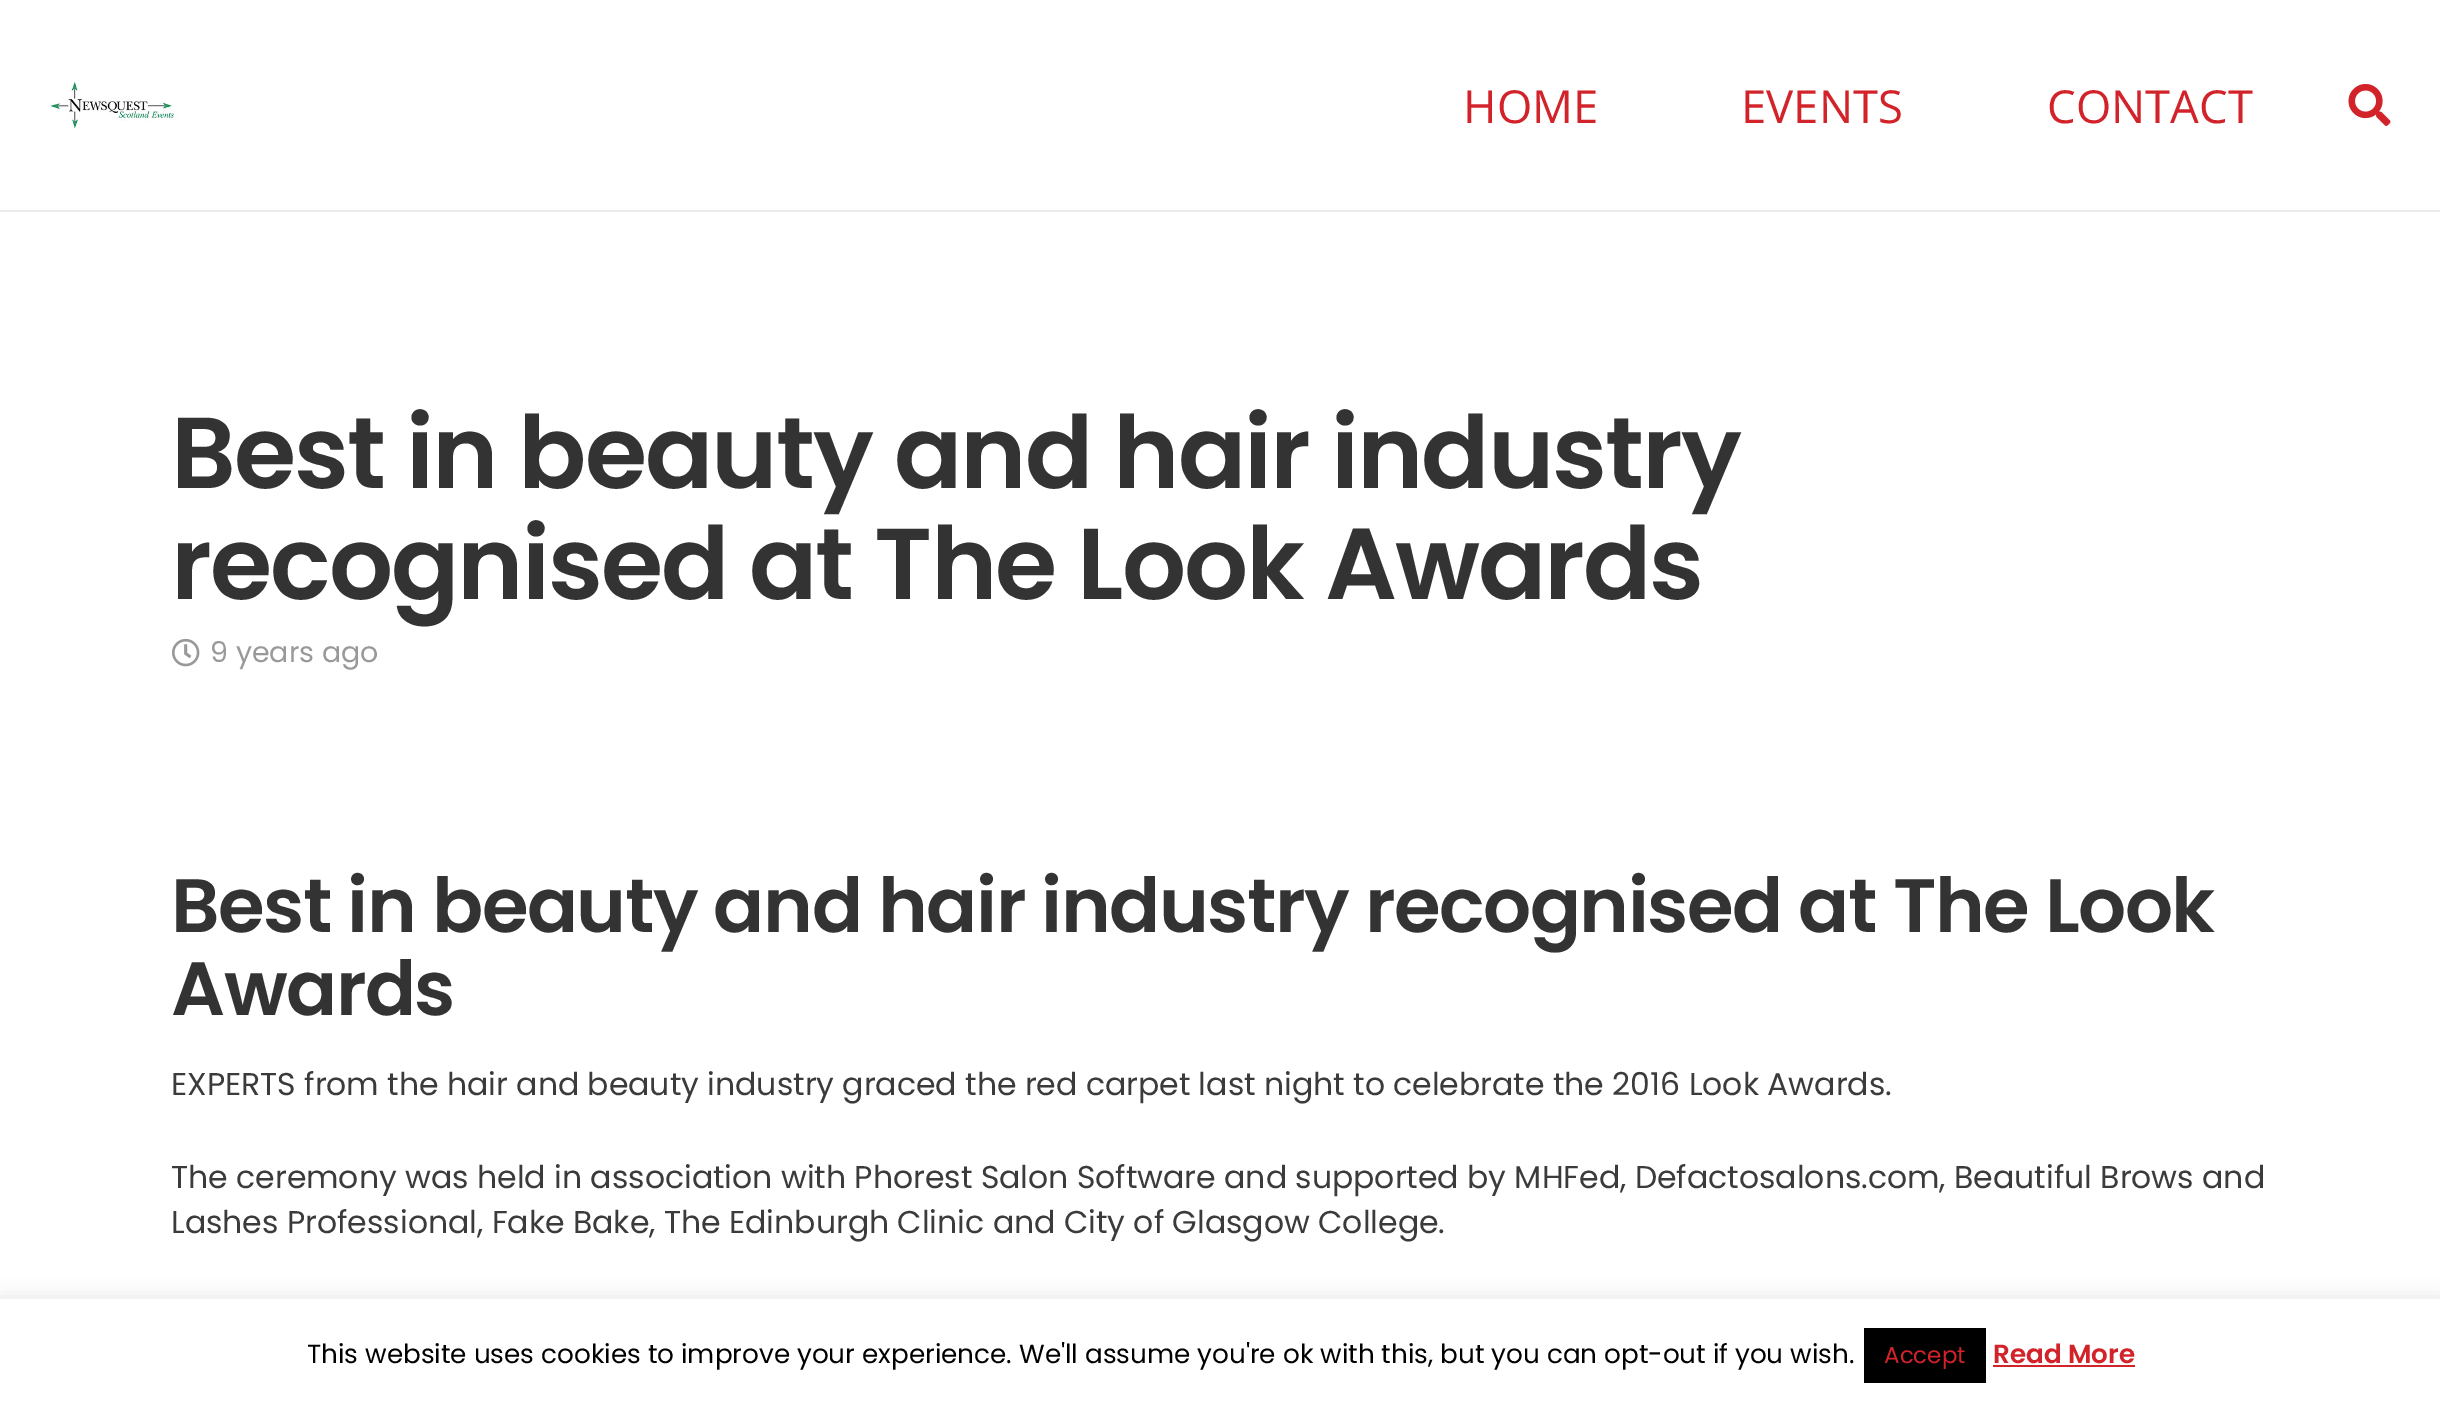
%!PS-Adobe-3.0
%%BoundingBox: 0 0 2440 1403
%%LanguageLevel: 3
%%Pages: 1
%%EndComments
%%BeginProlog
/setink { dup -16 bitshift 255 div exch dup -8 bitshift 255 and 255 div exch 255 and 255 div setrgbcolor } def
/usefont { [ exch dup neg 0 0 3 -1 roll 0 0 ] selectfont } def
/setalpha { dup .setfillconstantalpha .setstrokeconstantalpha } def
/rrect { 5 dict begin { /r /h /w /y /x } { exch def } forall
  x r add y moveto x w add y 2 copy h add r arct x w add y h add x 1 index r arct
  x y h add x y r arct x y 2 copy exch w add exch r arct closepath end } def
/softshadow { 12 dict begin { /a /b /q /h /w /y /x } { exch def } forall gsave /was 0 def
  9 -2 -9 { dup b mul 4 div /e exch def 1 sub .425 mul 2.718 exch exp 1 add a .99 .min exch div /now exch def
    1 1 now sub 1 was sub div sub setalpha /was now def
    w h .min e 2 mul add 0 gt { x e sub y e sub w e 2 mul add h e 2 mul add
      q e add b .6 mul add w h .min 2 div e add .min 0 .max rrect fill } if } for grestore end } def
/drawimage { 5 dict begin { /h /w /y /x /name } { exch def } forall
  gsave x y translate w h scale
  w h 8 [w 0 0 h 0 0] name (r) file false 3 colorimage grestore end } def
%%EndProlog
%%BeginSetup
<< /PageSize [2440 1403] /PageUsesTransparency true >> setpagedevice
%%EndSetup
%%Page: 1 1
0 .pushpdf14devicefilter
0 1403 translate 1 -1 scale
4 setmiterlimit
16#FFFFFF setink
0 0 2440 1403 rectfill
16#EBEBEB setink
0 210 2440 2 rectfill
(img1.raw) 48 80 129 50 drawimage
/OpenSans-Regular 45.5 usefont
16#D2232A setink
[
    [(HOME) 1463 123]
    [(EVENTS) 1741 123]
    [(CONTACT) 2047 123]
] { aload pop moveto show } forall
(img2.raw) 2348 84 43 42 drawimage
/Poppins-SemiBold 100.75 usefont
16#333333 setink
171 488 moveto -2 0 (Best in beauty and hair industry) ashow
171 599 moveto -2 0 (recognised at The Look Awards) ashow
(img3.raw) 172 638 28 29 drawimage
/Poppins-Regular 28.5 usefont
16#999999 setink
210 662 moveto (9 years ago) show
/Poppins-SemiBold 75.6 usefont
16#333333 setink
171 932 moveto -1.5 0 (Best in beauty and hair industry recognised at The Look) ashow
171 1015 moveto -1.5 0 (Awards) ashow
/Poppins-Regular 31.5 usefont
16#3B3B3B setink
[
    [(EXPERTS from the hair and beauty industry graced the red carpet last night to celebrate the 2016 Look Awards.) 171 1095]
    [(The ceremony was held in association with Phorest Salon Software and supported by MHFed, Defactosalons.com, Beautiful Brows and) 171 1188]
    [(Lashes Professional, Fake Bake, The Edinburgh Clinic and City of Glasgow College.) 171 1233]
] { aload pop moveto show } forall
16#ACABAB setink
0 1297 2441 105 0 9 0.3 softshadow
16#FFFFFF setink
0 1299 2440 104 rectfill
/Poppins-Regular 26.25 usefont
16#000000 setink
307 1363 moveto (This website uses cookies to improve your experience. We'll assume you're ok with this, but you can opt-out if you wish.) show
1864 1328 122 55 rectfill
/Poppins-Regular 23 usefont
16#D2232A setink
1884 1363 moveto (Accept) show
/Poppins-SemiBold 26.25 usefont
1993 1363 moveto (Read More) show
1993 1365 142 2 rectfill
.poppdf14devicefilter showpage
%%EOF
